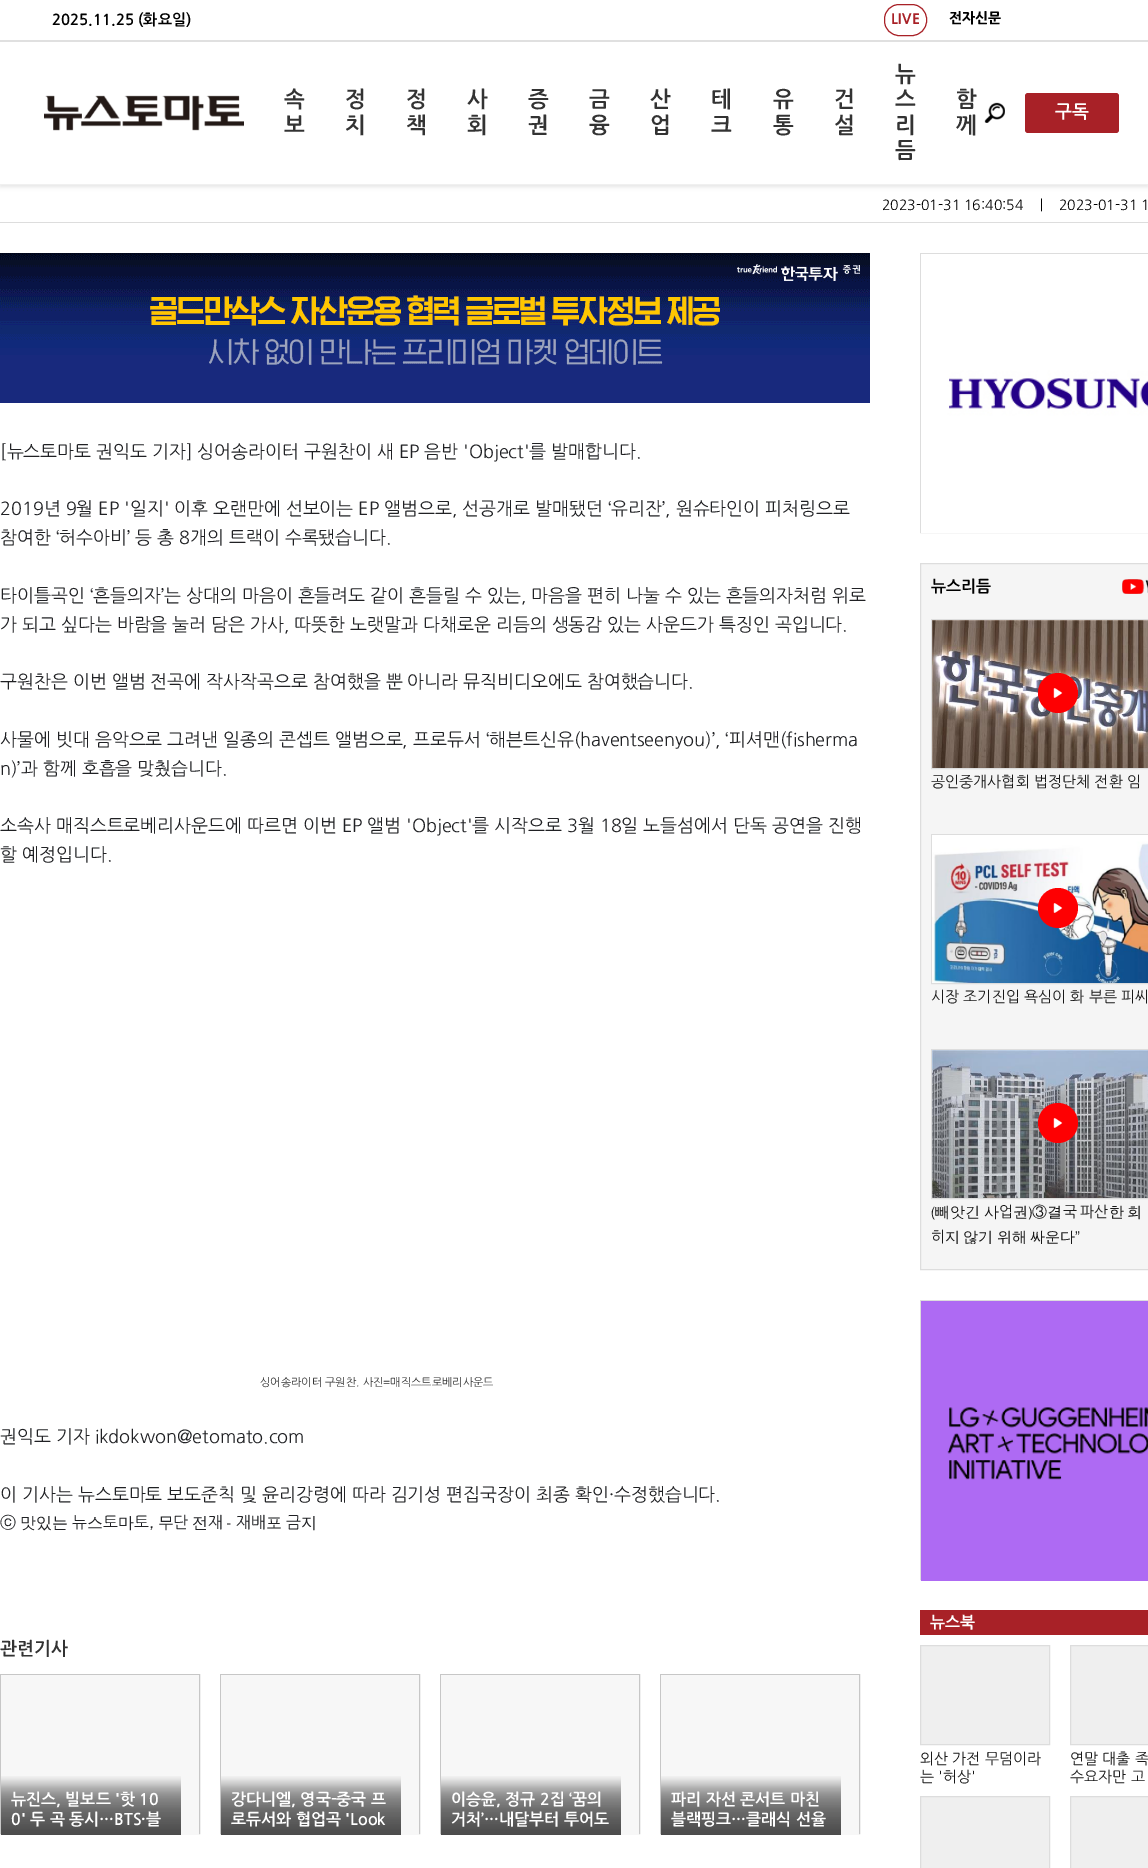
%!PS-Adobe-3.0
%%BoundingBox: 0 0 1148 1868
%%LanguageLevel: 3
%%Pages: 1
%%EndComments
%%BeginProlog
/setink { dup -16 bitshift 255 div exch dup -8 bitshift 255 and 255 div exch 255 and 255 div setrgbcolor } def
/usefont { [ exch dup neg 0 0 3 -1 roll 0 0 ] selectfont } def
/setalpha { dup .setfillconstantalpha .setstrokeconstantalpha } def
/disc { newpath 0 360 arc closepath } def
/rrect { 5 dict begin { /r /h /w /y /x } { exch def } forall
  x r add y moveto x w add y 2 copy h add r arct x w add y h add x 1 index r arct
  x y h add x y r arct x y 2 copy exch w add exch r arct closepath end } def
/softshadow { 12 dict begin { /a /b /q /h /w /y /x } { exch def } forall gsave /was 0 def
  9 -2 -9 { dup b mul 4 div /e exch def 1 sub .425 mul 2.718 exch exp 1 add a .99 .min exch div /now exch def
    1 1 now sub 1 was sub div sub setalpha /was now def
    w h .min e 2 mul add 0 gt { x e sub y e sub w e 2 mul add h e 2 mul add
      q e add b .6 mul add w h .min 2 div e add .min 0 .max rrect fill } if } for grestore end } def
/drawimage { 5 dict begin { /h /w /y /x /name } { exch def } forall
  gsave x y translate w h scale
  w h 8 [w 0 0 h 0 0] name (r) file false 3 colorimage grestore end } def
%%EndProlog
%%BeginSetup
<< /PageSize [1148 1868] /PageUsesTransparency true >> setpagedevice
%%EndSetup
%%Page: 1 1
0 .pushpdf14devicefilter
0 1868 translate 1 -1 scale
4 setmiterlimit
16#FFFFFF setink
0 0 1148 1868 rectfill
16#000000 setink
0 2 1148 185 0 2 0.1 softshadow
16#FFFFFF setink
0 0 1148 184 rectfill
16#E0E0E0 setink
0 40 1148 2 rectfill
/NanumGothic-Bold 15 usefont
16#000000 setink
52 25 moveto (2025.11.25 \(화요일\)) show
16#A82127 setink
884.5 4.5 42 31 14.5 rrect stroke
/NanumGothic-ExtraBold 14 usefont
891 24 moveto 0.5 0 (LIVE) ashow
16#000000 setink
949 23 moveto (전자신문) show
16#F0F0F0 setink
0 184 1148 1 rectfill
(img1.raw) 44 95 200 36 drawimage
/NanumGothic-Bold 22 usefont
16#333333 setink
[
    [(속) 284 107]
    [(보) 284 133]
    [(정) 345 107]
    [(치) 345 133]
    [(정) 406 107]
    [(책) 406 133]
    [(사) 467 107]
    [(회) 467 133]
    [(증) 528 107]
    [(권) 528 133]
    [(금) 589 107]
    [(융) 589 133]
    [(산) 650 107]
    [(업) 650 133]
    [(테) 711 107]
    [(크) 711 133]
    [(유) 773 107]
    [(통) 773 133]
    [(건) 834 107]
    [(설) 834 133]
    [(뉴) 895 82]
    [(스) 895 107]
    [(리) 895 133]
    [(듬) 895 158]
    [(함) 956 107]
    [(께) 956 133]
] { aload pop moveto show } forall
(img2.raw) 984 102 21 21 drawimage
16#A82127 setink
1025 93 94 40 3 rrect fill
/NanumGothic-Bold 18 usefont
16#FFFFFF setink
1055 118 moveto (구독) show
16#DDDDDD setink
0 222 1148 1 rectfill
/NanumGothic-Regular 14 usefont
16#000000 setink
[
    [(2023-01-31 16:40:54) 882 210]
    [(ㅣ) 1035 210]
    [(2023-01-31 1) 1059 210]
] { aload pop moveto show } forall
(img3.raw) 0 253 870 150 drawimage
/NanumGothic-Regular 18 usefont
16#202124 setink
[
    [([뉴스토마토 권익도 기자] 싱어송라이터 구원찬이 새 EP 음반 'Object'를 발매합니다.) 0 458]
    [(2019년 9월 EP '일지' 이후 오랜만에 선보이는 EP 앨범으로, 선공개로 발매됐던 ‘유리잔’, 원슈타인이 피처링으로) 0 515]
    [(참여한 ‘허수아비’ 등 총 8개의 트랙이 수록됐습니다.) 0 544]
    [(타이틀곡인 ‘흔들의자’는 상대의 마음이 흔들려도 같이 흔들릴 수 있는, 마음을 편히 나눌 수 있는 흔들의자처럼 위로) 0 602]
    [(가 되고 싶다는 바람을 눌러 담은 가사, 따뜻한 노랫말과 다채로운 리듬의 생동감 있는 사운드가 특징인 곡입니다.) 0 631]
    [(구원찬은 이번 앨범 전곡에 작사작곡으로 참여했을 뿐 아니라 뮤직비디오에도 참여했습니다.) 0 688]
    [(사물에 빗대 음악으로 그려낸 일종의 콘셉트 앨범으로, 프로듀서 ‘해븐트신유\(haventseenyou\)’, ‘피셔맨\(fisherma) 0 746]
    [(n\)’과 함께 호흡을 맞췄습니다.) 0 775]
    [(소속사 매직스트로베리사운드에 따르면 이번 EP 앨범 'Object'를 시작으로 3월 18일 노들섬에서 단독 공연을 진행) 0 832]
    [(할 예정입니다.) 0 861]
] { aload pop moveto show } forall
/NanumGothic-Regular 11 usefont
16#333333 setink
260 1386 moveto (싱어송라이터 구원찬. 사진=매직스트로베리사운드) show
/NanumGothic-Regular 18 usefont
16#202124 setink
0 1443 moveto (권익도 기자 ikdokwon@etomato.com) show
0 1501 moveto (이 기사는 뉴스토마토 보도준칙 및 윤리강령에 따라 김기성 편집국장이 최종 확인·수정했습니다.) show
/WenQuanYiZenHei-Medium 16 usefont
0 1528 moveto -1 0 32 (ⓒ 맛있는) widthshow
/NanumGothic-Regular 16 usefont
72 1528 moveto (뉴) show
/WenQuanYiZenHei-Medium 16 usefont
87 1528 moveto (스) show
/NanumGothic-Regular 16 usefont
103 1528 moveto (토) show
/WenQuanYiZenHei-Medium 16 usefont
118 1528 moveto (마) show
/NanumGothic-Regular 16 usefont
134 1528 moveto (토) show
/WenQuanYiZenHei-Medium 16 usefont
149 1528 moveto -1 0 32 (, 무) widthshow
/NanumGothic-Regular 16 usefont
173 1528 moveto (단) show
/WenQuanYiZenHei-Medium 16 usefont
192 1528 moveto (전) show
/NanumGothic-Regular 16 usefont
208 1528 moveto (재) show
/WenQuanYiZenHei-Medium 16 usefont
227 1528 moveto (-) show
/NanumGothic-Regular 16 usefont
236 1528 moveto (재배) show
/WenQuanYiZenHei-Medium 16 usefont
266 1528 moveto (포) show
/NanumGothic-Regular 16 usefont
286 1528 moveto (금) show
/WenQuanYiZenHei-Medium 16 usefont
301 1528 moveto (지) show
/NanumGothic-Bold 18 usefont
16#333333 setink
0 1655 moveto (관련기사) show
16#C7C7C7 setink
0.5 1674.5 199 159 rectstroke
16#F7F7F7 setink
1 1675 198 160 rectfill
(img4.raw) 1 1776 180 59 drawimage
/NanumGothic-Bold 16 usefont
16#FFFFFF setink
11 1805 moveto (뉴진스, 빌보드 '핫 10) show
11 1825 moveto (0' 두 곡 동시…BTS·블) show
16#C7C7C7 setink
220.5 1674.5 199 159 rectstroke
16#F7F7F7 setink
221 1675 198 160 rectfill
(img4.raw) 221 1776 180 59 drawimage
16#FFFFFF setink
231 1805 moveto (강다니엘, 영국-중국 프) show
231 1825 moveto (로듀서와 협업곡 'Look) show
16#C7C7C7 setink
440.5 1674.5 199 159 rectstroke
16#F7F7F7 setink
441 1675 198 160 rectfill
(img4.raw) 441 1776 180 59 drawimage
16#FFFFFF setink
451 1805 moveto (이승윤, 정규 2집 ‘꿈의) show
451 1825 moveto (거처’…내달부터 투어도) show
16#C7C7C7 setink
660.5 1674.5 199 159 rectstroke
16#F7F7F7 setink
661 1675 198 160 rectfill
(img4.raw) 661 1776 180 59 drawimage
16#FFFFFF setink
671 1805 moveto (파리 자선 콘서트 마친) show
671 1825 moveto (블랙핑크…클래식 선율) show
16#DDDDDD setink
920.5 253.5 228 279 rectstroke
(img5.raw) 921 254 227 279 drawimage
16#F5F5F5 setink
920.5 563.5 moveto 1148.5 563.5 lineto 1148.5 1269.5 lineto 920.5 1269.5 lineto closepath gsave fill grestore
16#DDDDDD setink
stroke
16#000000 setink
931 592 moveto (뉴스리듬) show
(img6.raw) 1122 579 26 15 drawimage
16#DDDDDD setink
931.5 619.5 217 149 rectstroke
(img7.raw) 932 620 216 148 drawimage
16#FE0002 setink
1058 693 20 disc fill
(img8.raw) 1053 688 10 10 drawimage
/NanumGothic-Regular 15 usefont
16#181818 setink
931 787 moveto (공인중개사협회 법정단체 전환 임) show
16#DDDDDD setink
931.5 834.5 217 149 rectstroke
(img9.raw) 932 835 216 148 drawimage
16#FE0002 setink
1058 908 20 disc fill
(img8.raw) 1053 903 10 10 drawimage
16#181818 setink
931 1002 moveto (시장 조기진입 욕심이 화 부른 피씨) show
16#DDDDDD setink
931.5 1049.5 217 149 rectstroke
(img10.raw) 932 1050 216 148 drawimage
16#FE0002 setink
1058 1123 20 disc fill
(img8.raw) 1053 1118 10 10 drawimage
/WenQuanYiZenHei-Medium 15 usefont
16#181818 setink
931 1217 moveto -1 0 32 (\(빼앗긴 사) widthshow
/NanumGothic-Regular 15 usefont
999 1217 moveto (업) show
/WenQuanYiZenHei-Medium 15 usefont
1013 1217 moveto (권\)③결) show
/NanumGothic-Regular 15 usefont
1063 1217 moveto (국) show
1080 1217 moveto (파산) show
/WenQuanYiZenHei-Medium 15 usefont
1109 1217 moveto -1 0 32 (한 회) widthshow
/NanumGothic-Regular 15 usefont
931 1242 moveto (히) show
gsave
931 1199 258 45 rectclip
/WenQuanYiZenHei-Medium 15 usefont
945 1242 moveto -1 0 32 (지 않기 위해 싸운다”) widthshow
grestore
16#DDDDDD setink
920.5 1300.5 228 279 rectstroke
(img11.raw) 921 1301 227 280 drawimage
16#A82127 setink
920 1610 228 25 rectfill
/NanumGothic-Bold 16 usefont
16#FFFFFF setink
930 1628 moveto (뉴스북) show
16#EFEFEF setink
920.5 1645.5 moveto 1049.5 1645.5 lineto 1049.5 1744.5 lineto 920.5 1744.5 lineto closepath gsave fill grestore
16#DDDDDD setink
stroke
/NanumGothic-Regular 15 usefont
16#181818 setink
920 1764 moveto (외산 가전 무덤이라) show
920 1782 moveto (는 '허상') show
16#EFEFEF setink
1070.5 1645.5 moveto 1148.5 1645.5 lineto 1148.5 1744.5 lineto 1070.5 1744.5 lineto closepath gsave fill grestore
16#DDDDDD setink
stroke
16#181818 setink
1070 1764 moveto (연말 대출 족) show
1070 1782 moveto (수요자만 고) show
16#EFEFEF setink
920.5 1796.5 moveto 1049.5 1796.5 lineto 1049.5 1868.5 lineto 920.5 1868.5 lineto closepath gsave fill grestore
16#DDDDDD setink
stroke
16#EFEFEF setink
1070.5 1796.5 moveto 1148.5 1796.5 lineto 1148.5 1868.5 lineto 1070.5 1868.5 lineto closepath gsave fill grestore
16#DDDDDD setink
stroke
.poppdf14devicefilter showpage
%%EOF
